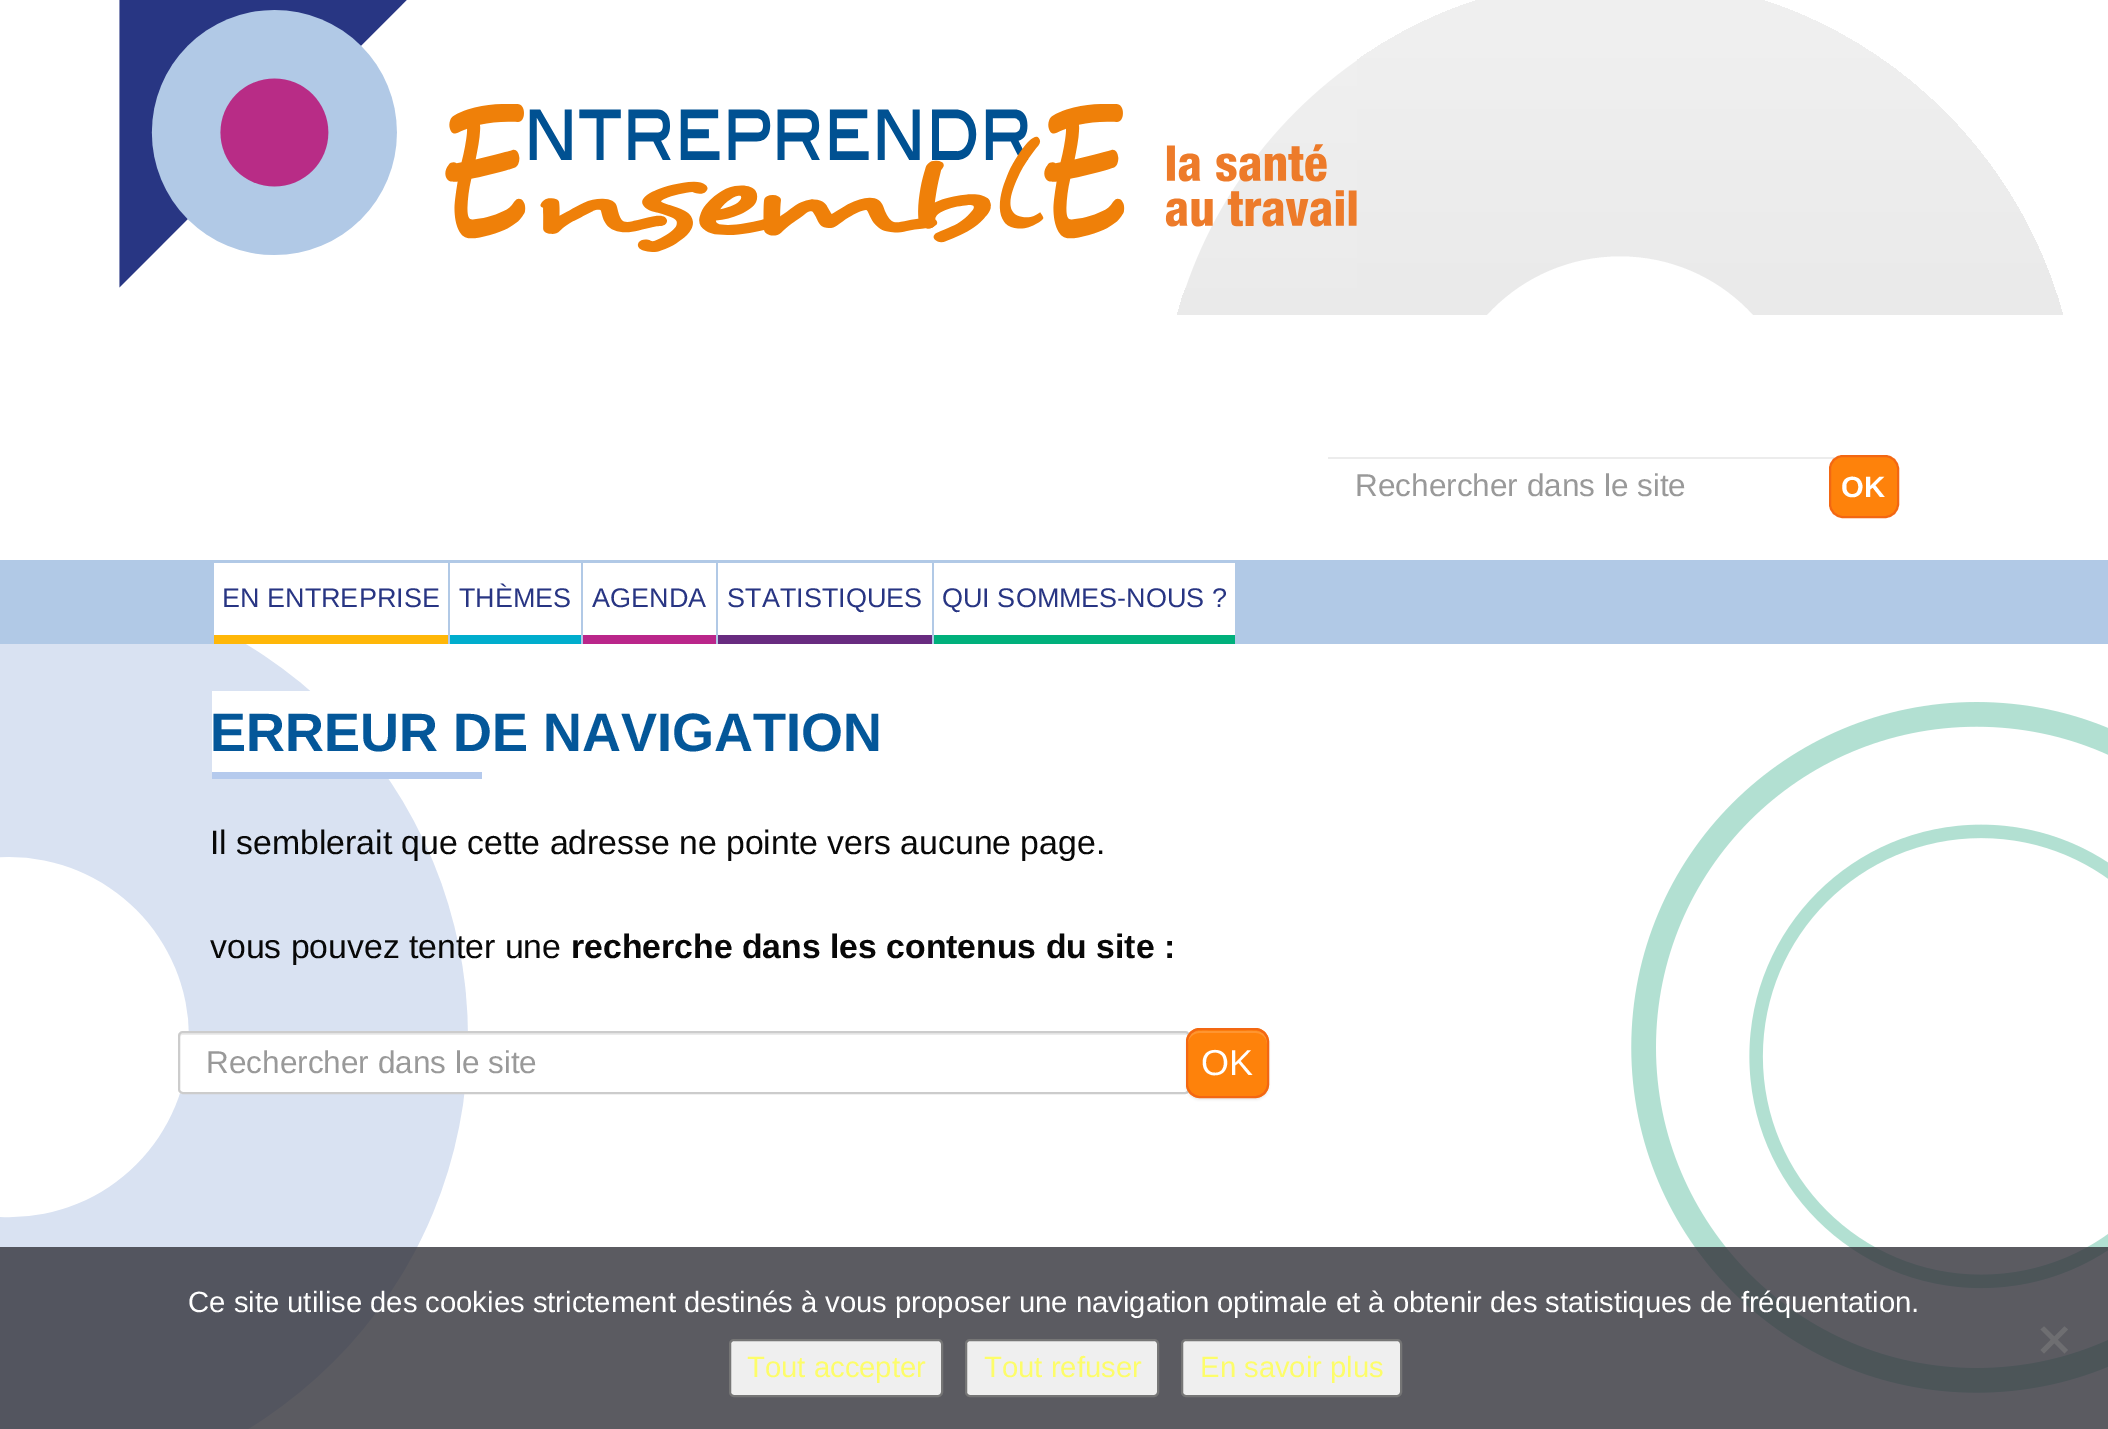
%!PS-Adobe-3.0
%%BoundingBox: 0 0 2108 1429
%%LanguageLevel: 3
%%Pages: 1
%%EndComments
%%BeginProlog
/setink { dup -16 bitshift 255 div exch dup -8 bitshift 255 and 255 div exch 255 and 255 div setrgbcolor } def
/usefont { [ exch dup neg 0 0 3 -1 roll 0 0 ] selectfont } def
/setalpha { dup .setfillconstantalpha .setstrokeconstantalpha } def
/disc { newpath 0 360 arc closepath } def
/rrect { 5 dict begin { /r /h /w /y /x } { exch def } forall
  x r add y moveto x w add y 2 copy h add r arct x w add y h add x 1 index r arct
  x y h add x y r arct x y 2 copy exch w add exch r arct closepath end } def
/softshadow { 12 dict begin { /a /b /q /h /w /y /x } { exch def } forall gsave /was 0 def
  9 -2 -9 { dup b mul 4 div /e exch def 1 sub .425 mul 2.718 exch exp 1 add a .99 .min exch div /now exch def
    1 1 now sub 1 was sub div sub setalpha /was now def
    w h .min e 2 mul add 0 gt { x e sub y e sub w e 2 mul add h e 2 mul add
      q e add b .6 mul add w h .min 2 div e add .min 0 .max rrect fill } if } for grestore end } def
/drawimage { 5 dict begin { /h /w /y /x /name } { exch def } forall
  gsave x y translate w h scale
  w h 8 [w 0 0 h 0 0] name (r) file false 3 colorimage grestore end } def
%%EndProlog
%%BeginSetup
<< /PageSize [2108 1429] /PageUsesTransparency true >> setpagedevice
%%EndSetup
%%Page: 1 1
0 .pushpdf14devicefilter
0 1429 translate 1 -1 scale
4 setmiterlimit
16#FFFFFF setink
0 0 2108 1429 rectfill
(img1.raw) 0 644 468 785 drawimage
gsave
1161 0 918 315 rectclip
gsave 1620 436.5 459 disc clip newpath
<< /ShadingType 2 /ColorSpace /DeviceRGB /Coords [1620 57 1620 861] /Extend [true true] /Function << /FunctionType 2 /Domain [0 1] /C0 [0.937 0.937 0.937] /C1 [0.882 0.882 0.882] /N 1 >> >> shfill grestore
grestore
(img2.raw) 119 0 1238 288 drawimage
gsave
1161 0 918 315 rectclip
1620 436.5 180 disc fill
grestore
16#ECECEC setink
1328 457 510 2 rectfill
/LiberationSans-Regular 31.5 usefont
16#999999 setink
1355 496 moveto (Rechercher dans le site) show
16#FE820B setink
1830 456 68 61 13 rrect gsave fill grestore
16#F36712 setink
2 setlinewidth
stroke
/LiberationSans-Bold 29.25 usefont
16#FFFFFF setink
1841 497 moveto (OK) show
[
    [0 560 2108 84 16#B1C9E6]
    [214 563 234 72 16#FFFFFF]
    [214 635 234 9 16#FFB708]
] { aload pop setink rectfill } forall
/LiberationSans-Regular 27 usefont
16#283583 setink
222 607 moveto (EN ENTREPRISE) show
16#FFFFFF setink
450 563 131 72 rectfill
16#00ADCD setink
450 635 131 9 rectfill
16#283583 setink
459 607 moveto (THÈMES) show
16#FFFFFF setink
583 563 133 72 rectfill
16#BA268A setink
583 635 133 9 rectfill
16#283583 setink
592 607 moveto (AGENDA) show
16#FFFFFF setink
718 563 214 72 rectfill
16#682B80 setink
718 635 214 9 rectfill
16#283583 setink
727 607 moveto (STATISTIQUES) show
16#FFFFFF setink
934 563 301 72 rectfill
16#00B07B setink
934 635 301 9 rectfill
16#283583 setink
942 607 moveto (QUI SOMMES-NOUS ?) show
(img3.raw) 1631 702 477 691 drawimage
16#FFFFFF setink
212 691 172 81 rectfill
/LiberationSans-Bold 54 usefont
16#045799 setink
210 751 moveto (ERREUR DE NAVIGATION) show
16#B5CAED setink
212 772 270 7 rectfill
/LiberationSans-Regular 33.75 usefont
16#080808 setink
210 854 moveto (Il semblerait que cette adresse ne pointe vers aucune page.) show
210 958 moveto (vous pouvez tenter une) show
/LiberationSans-Bold 33.75 usefont
571 958 moveto (recherche dans les contenus du site :) show
16#FFFFFF setink
178 1031 1012 63 5 rrect fill
16#ECECEC setink
182 1035 moveto 1186 1035 lineto 1187 1035 1188 1036 1188 1037 curveto 1188 1035 1188 1033 1186 1033 curveto 182 1033 lineto 180 1034 lineto 180 1037 lineto 180 1036 181 1035 182 1035 curveto closepath fill
16#CCCCCC setink
179 1032 1010 61 4 rrect stroke
/LiberationSans-Regular 31.5 usefont
16#999999 setink
206 1073 moveto (Rechercher dans le site) show
16#000000 setink
1186 1031 83 69 14 1 0.07 softshadow
16#FE820B setink
1186 1028 83 70 14 rrect fill
16#FE9530 setink
1199 1033 moveto 1256 1033 lineto 1262 1033 1267 1038 1267 1044 curveto 1267 1030 1258 1031 1246 1031 curveto 1208 1031 lineto 1197 1031 1188 1030 1188 1044 curveto 1188 1038 1193 1033 1199 1033 curveto closepath fill
16#F36712 setink
1187 1029 81 68 13 rrect stroke
/LiberationSans-Regular 36 usefont
16#FFFFFF setink
1201 1075 moveto (OK) show
0.8 setalpha
16#32323A setink
0 1247 2108 182 rectfill
/LiberationSans-Regular 29.25 usefont
1 setalpha
16#FFFFFF setink
188 1312 moveto (Ce site utilise des cookies strictement destinés à vous proposer une navigation optimale et à obtenir des statistiques de fréquentation.) show
16#6E6E71 setink
2064.5 1326.5 moveto 2068 1329.5 lineto 2044 1353.5 lineto 2040.5 1350 lineto closepath fill
2040.5 1329.5 moveto 2044 1326.5 lineto 2068 1350 lineto 2064.5 1353.5 lineto closepath fill
16#EFEFEF setink
730 1340 212 56 4 rrect gsave fill grestore
16#767676 setink
stroke
16#FDFD69 setink
747 1377 moveto (Tout accepter) show
16#EFEFEF setink
966 1340 192 56 4 rrect gsave fill grestore
16#767676 setink
stroke
16#FDFD69 setink
984 1377 moveto (Tout refuser) show
16#EFEFEF setink
1182 1340 219 56 4 rrect gsave fill grestore
16#767676 setink
stroke
16#FDFD69 setink
1200 1377 moveto (En savoir plus) show
.poppdf14devicefilter showpage
%%EOF
